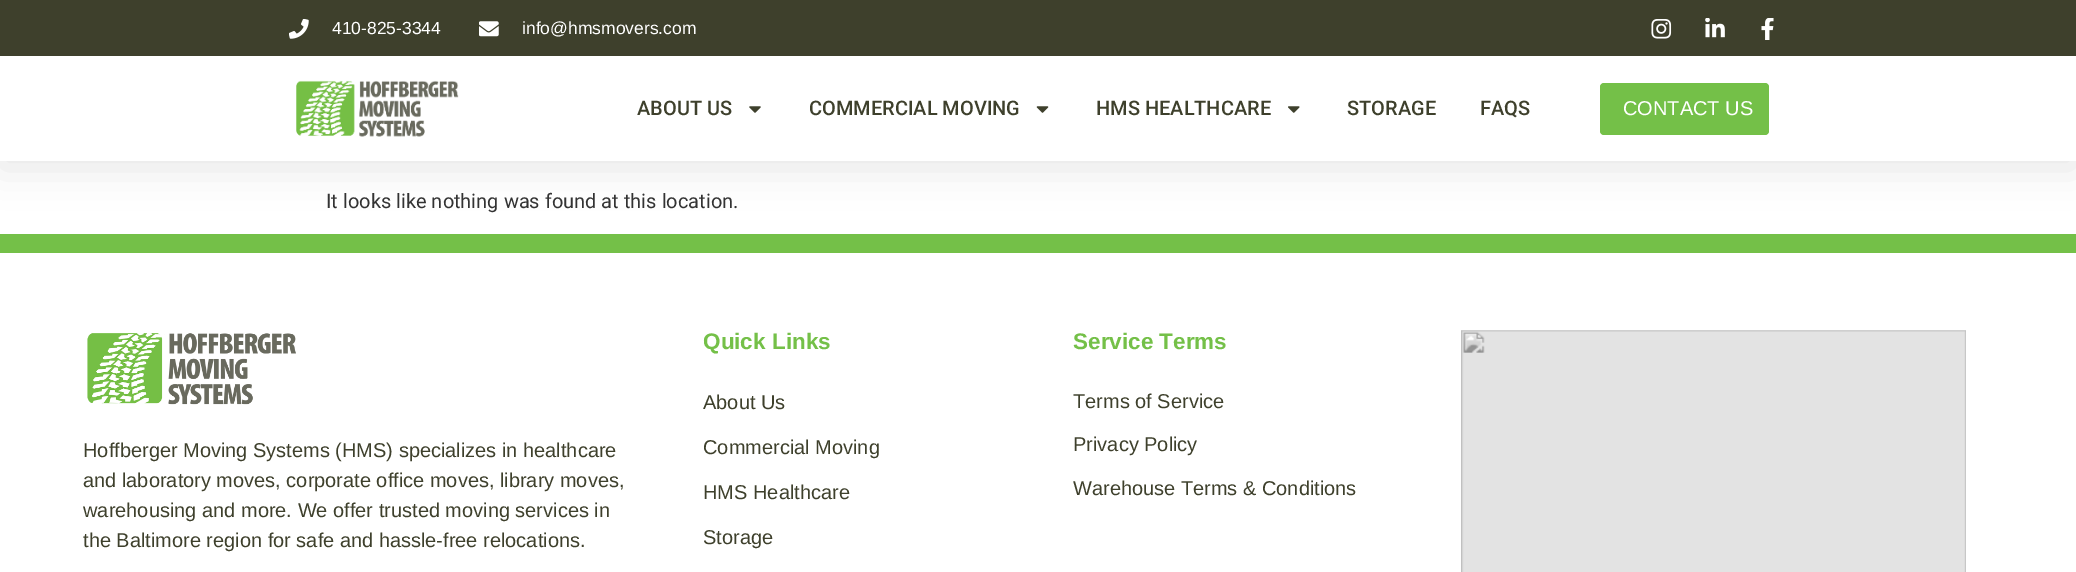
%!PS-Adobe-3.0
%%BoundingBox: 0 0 2076 572
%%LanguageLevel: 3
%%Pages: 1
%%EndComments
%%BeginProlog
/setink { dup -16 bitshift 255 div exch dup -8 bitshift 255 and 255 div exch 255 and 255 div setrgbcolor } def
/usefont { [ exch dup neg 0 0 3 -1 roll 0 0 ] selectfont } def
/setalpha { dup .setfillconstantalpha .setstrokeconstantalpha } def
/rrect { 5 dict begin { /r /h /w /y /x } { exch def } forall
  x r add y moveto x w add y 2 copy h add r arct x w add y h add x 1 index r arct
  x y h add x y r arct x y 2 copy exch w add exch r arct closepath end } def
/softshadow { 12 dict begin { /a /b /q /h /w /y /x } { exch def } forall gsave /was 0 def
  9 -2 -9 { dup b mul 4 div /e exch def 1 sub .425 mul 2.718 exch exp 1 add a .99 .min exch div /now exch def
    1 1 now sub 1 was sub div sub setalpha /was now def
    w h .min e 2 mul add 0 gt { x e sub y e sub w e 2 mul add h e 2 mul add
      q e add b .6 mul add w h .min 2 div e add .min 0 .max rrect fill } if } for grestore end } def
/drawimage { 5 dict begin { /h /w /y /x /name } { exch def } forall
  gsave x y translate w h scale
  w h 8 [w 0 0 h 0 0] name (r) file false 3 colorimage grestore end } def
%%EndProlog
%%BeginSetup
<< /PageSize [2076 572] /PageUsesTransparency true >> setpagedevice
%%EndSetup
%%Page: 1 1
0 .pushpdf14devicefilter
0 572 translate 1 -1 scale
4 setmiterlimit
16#FFFFFF setink
0 0 2076 572 rectfill
16#000000 setink
0 6 2076 162 0 19 0.1 softshadow
16#3E402C setink
0 0 2076 56 rectfill
(img1.raw) 289 19 20 20 drawimage
/LiberationSans-Regular 17.5 usefont
16#FFFFFF setink
332 34 moveto (410-825-3344) show
(img2.raw) 479 21 20 16 drawimage
522 34 moveto (info@hmsmovers.com) show
(img3.raw) 1651 19 21 20 drawimage
(img4.raw) 1705 18 20 20 drawimage
(img5.raw) 1761 18 13 22 drawimage
0 56 2076 105 rectfill
(img6.raw) 296 80 163 57 drawimage
/Roboto-Medium 20 usefont
16#3E402C setink
637 115 moveto (ABOUT US) show
(img7.raw) 749 106 12 7 drawimage
809 115 moveto (COMMERCIAL MOVING) show
(img8.raw) 1036 106 13 7 drawimage
1096 115 moveto (HMS HEALTHCARE) show
(img9.raw) 1288 106 12 7 drawimage
1347 115 moveto (STORAGE) show
1480 115 moveto (FAQS) show
16#74C048 setink
1600 83 169 52 4 rrect fill
/LiberationSans-Regular 20 usefont
16#FFFFFF setink
1623 115 moveto (CONTACT US) show
/Roboto-Regular 20 usefont
16#333333 setink
326 208 moveto (It looks like nothing was found at this location.) show
16#74C048 setink
0 234 2076 19 rectfill
(img10.raw) 87 333 209 72 drawimage
/LiberationSans-Regular 20 usefont
16#3E402C setink
[
    [(Hoffberger Moving Systems \(HMS\) specializes in healthcare) 83 457]
    [(and laboratory moves, corporate office moves, library moves,) 83 487]
    [(warehousing and more. We offer trusted moving services in) 83 517]
    [(the Baltimore region for safe and hassle-free relocations.) 83 547]
] { aload pop moveto show } forall
/LiberationSans-Bold 22.5 usefont
16#74C048 setink
703 349 moveto (Quick Links) show
/LiberationSans-Regular 20 usefont
16#3E402C setink
[
    [(About Us) 703 409]
    [(Commercial Moving) 703 454]
    [(HMS Healthcare) 703 499]
    [(Storage) 703 544]
] { aload pop moveto show } forall
/LiberationSans-Bold 22.5 usefont
16#74C048 setink
1073 349 moveto (Service Terms) show
/LiberationSans-Regular 20 usefont
16#3E402C setink
[
    [(Terms of Service) 1073 408]
    [(Privacy Policy) 1073 451]
    [(Warehouse Terms & Conditions) 1073 495]
] { aload pop moveto show } forall
(img11.raw) 1461 330 505 242 drawimage
.poppdf14devicefilter showpage
%%EOF
